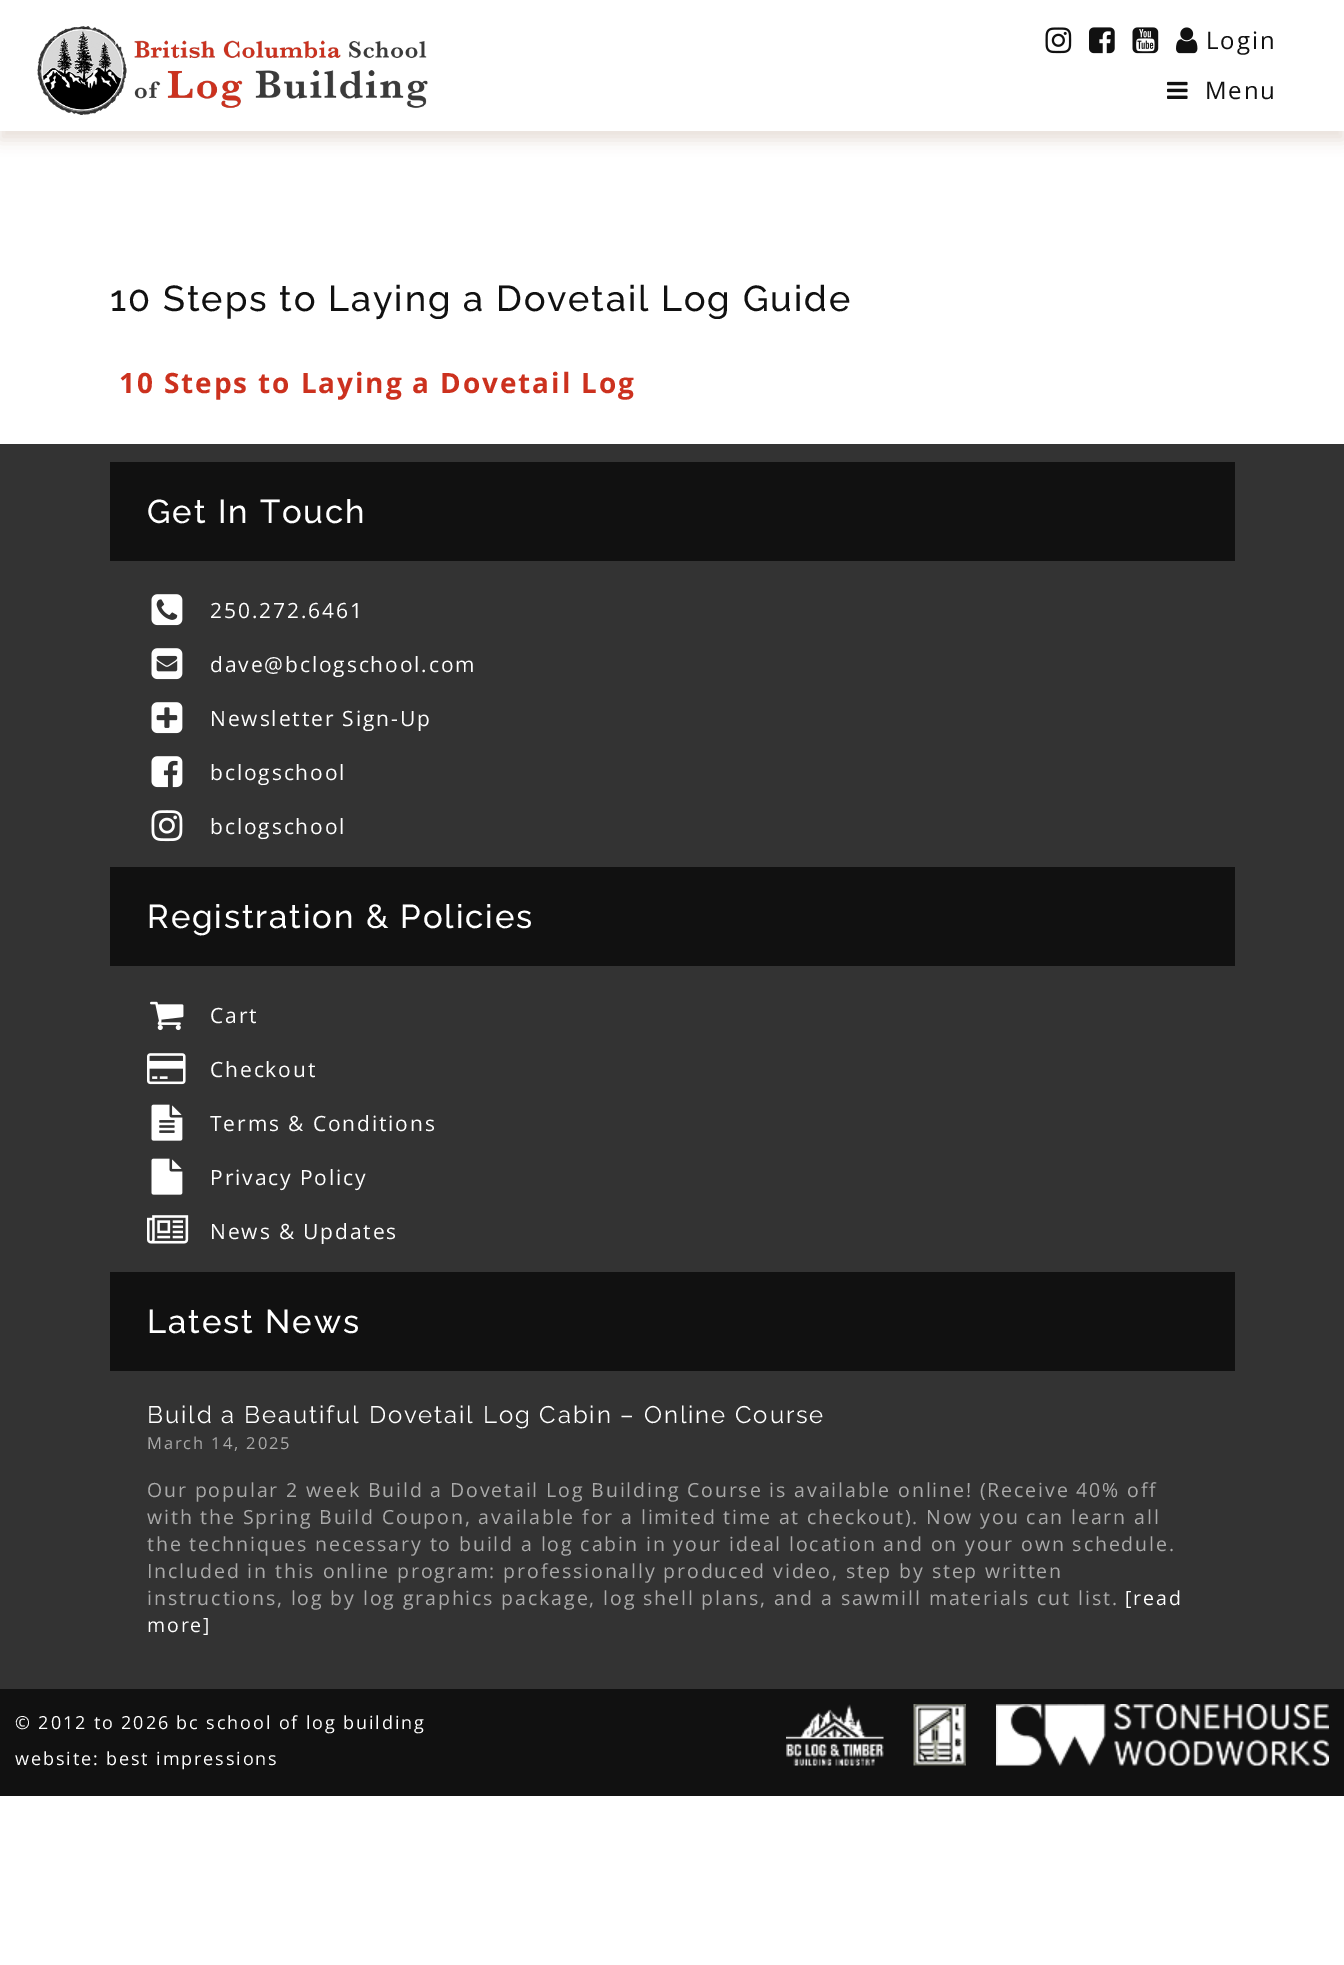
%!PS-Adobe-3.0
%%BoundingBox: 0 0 1344 1965
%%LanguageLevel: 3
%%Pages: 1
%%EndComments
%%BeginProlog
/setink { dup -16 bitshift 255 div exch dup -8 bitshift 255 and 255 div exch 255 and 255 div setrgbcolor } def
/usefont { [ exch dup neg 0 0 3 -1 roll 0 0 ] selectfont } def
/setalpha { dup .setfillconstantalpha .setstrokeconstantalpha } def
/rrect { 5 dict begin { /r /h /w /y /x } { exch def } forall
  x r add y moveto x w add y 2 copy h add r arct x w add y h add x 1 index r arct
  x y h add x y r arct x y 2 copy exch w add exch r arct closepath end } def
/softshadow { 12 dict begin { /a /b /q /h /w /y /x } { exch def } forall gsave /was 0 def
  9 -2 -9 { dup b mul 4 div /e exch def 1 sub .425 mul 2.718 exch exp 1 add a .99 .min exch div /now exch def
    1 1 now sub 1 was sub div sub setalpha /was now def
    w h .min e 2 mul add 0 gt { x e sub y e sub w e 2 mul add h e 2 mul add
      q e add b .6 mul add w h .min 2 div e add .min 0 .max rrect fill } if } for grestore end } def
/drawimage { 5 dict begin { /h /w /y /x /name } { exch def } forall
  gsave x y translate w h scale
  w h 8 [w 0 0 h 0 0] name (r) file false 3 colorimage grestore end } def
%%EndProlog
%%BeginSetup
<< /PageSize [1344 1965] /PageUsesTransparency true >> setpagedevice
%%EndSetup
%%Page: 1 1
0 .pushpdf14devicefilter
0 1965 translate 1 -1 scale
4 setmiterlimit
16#FFFFFF setink
0 0 1344 1965 rectfill
16#672E0C setink
0 9 1344 131 0 7.5 0.15 softshadow
16#FFFFFF setink
0 0 1344 131 rectfill
(img1.raw) 37 26 391 89 drawimage
(img2.raw) 1045 27 27 27 drawimage
(img3.raw) 1089 27 26 27 drawimage
(img4.raw) 1132 27 27 27 drawimage
(img5.raw) 1176 27 22 27 drawimage
/OpenSans-Regular 24 usefont
16#111111 setink
1206 49 moveto 1.88 0 (Login) ashow
(img6.raw) 1167 81 21 18 drawimage
1205 99 moveto 1.88 0 (Menu) ashow
/Raleway-Medium 36 usefont
110 311 moveto 1.88 0 (10 Steps to Laying a Dovetail Log Guide) ashow
/OpenSans-Bold 28 usefont
16#CC311E setink
119 393 moveto 1.88 0 (10 Steps to Laying a Dovetail Log) ashow
16#333333 setink
0 444 1344 1245 rectfill
16#111111 setink
110 462 1125 99 rectfill
/Raleway-Medium 33 usefont
16#FFFFFF setink
147 523 moveto 1.88 0 (Get In Touch) ashow
(img7.raw) 151 594 32 32 drawimage
/OpenSans-Regular 21 usefont
210 618 moveto 1.88 0 (250.272.6461) ashow
(img8.raw) 151 648 32 32 drawimage
210 672 moveto 1.88 0 (dave@bclogschool.com) ashow
(img9.raw) 151 702 32 32 drawimage
210 726 moveto 1.88 0 (Newsletter Sign-Up) ashow
(img10.raw) 151 756 32 32 drawimage
210 780 moveto 1.88 0 (bclogschool) ashow
(img11.raw) 151 810 32 32 drawimage
210 834 moveto 1.88 0 (bclogschool) ashow
16#111111 setink
110 867 1125 99 rectfill
/Raleway-Medium 33 usefont
16#FFFFFF setink
147 928 moveto 1.88 0 (Registration & Policies) ashow
(img12.raw) 150 1001 34 30 drawimage
/OpenSans-Regular 21 usefont
210 1023 moveto 1.88 0 (Cart) ashow
(img13.raw) 147 1053 39 32 drawimage
210 1077 moveto 1.88 0 (Checkout) ashow
(img14.raw) 151 1104 32 37 drawimage
210 1131 moveto 1.88 0 (Terms & Conditions) ashow
(img15.raw) 151 1158 32 37 drawimage
210 1185 moveto 1.88 0 (Privacy Policy) ashow
(img16.raw) 147 1215 42 29 drawimage
210 1239 moveto 1.88 0 (News & Updates) ashow
16#111111 setink
110 1272 1125 99 rectfill
/Raleway-Medium 33 usefont
16#FFFFFF setink
147 1333 moveto 1.88 0 (Latest News) ashow
/Raleway-Regular 24 usefont
147 1423 moveto 1.88 0 (Build a Beautiful Dovetail Log Cabin – Online Course) ashow
/OpenSans-Regular 16.5 usefont
16#AAAAAA setink
147 1449 moveto 1.88 0 (March 14, 2025) ashow
/OpenSans-Regular 19.5 usefont
147 1497 moveto 1.88 0 (Our popular 2 week Build a Dovetail Log Building Course is available online! \(Receive 40% off) ashow
147 1524 moveto 1.88 0 (with the Spring Build Coupon, available for a limited time at checkout\). Now you can learn all) ashow
147 1551 moveto 1.88 0 (the techniques necessary to build a log cabin in your ideal location and on your own schedule.) ashow
147 1578 moveto 1.88 0 (Included in this online program: professionally produced video, step by step written) ashow
147 1605 moveto 1.88 0 (instructions, log by log graphics package, log shell plans, and a sawmill materials cut list.) ashow
16#FFFFFF setink
1125 1605 moveto 1.88 0 ([read) ashow
147 1632 moveto 1.88 0 (more]) ashow
16#111111 setink
0 1689 1344 107 rectfill
/OpenSans-Regular 18 usefont
16#FFFFFF setink
15 1729 moveto 1.88 0 (© 2012 to 2026 bc school of log building) ashow
15 1765 moveto 1.88 0 (website: best impressions) ashow
(img17.raw) 786 1704 98 62 drawimage
(img18.raw) 913 1704 53 62 drawimage
(img19.raw) 996 1704 333 62 drawimage
.poppdf14devicefilter showpage
%%EOF
